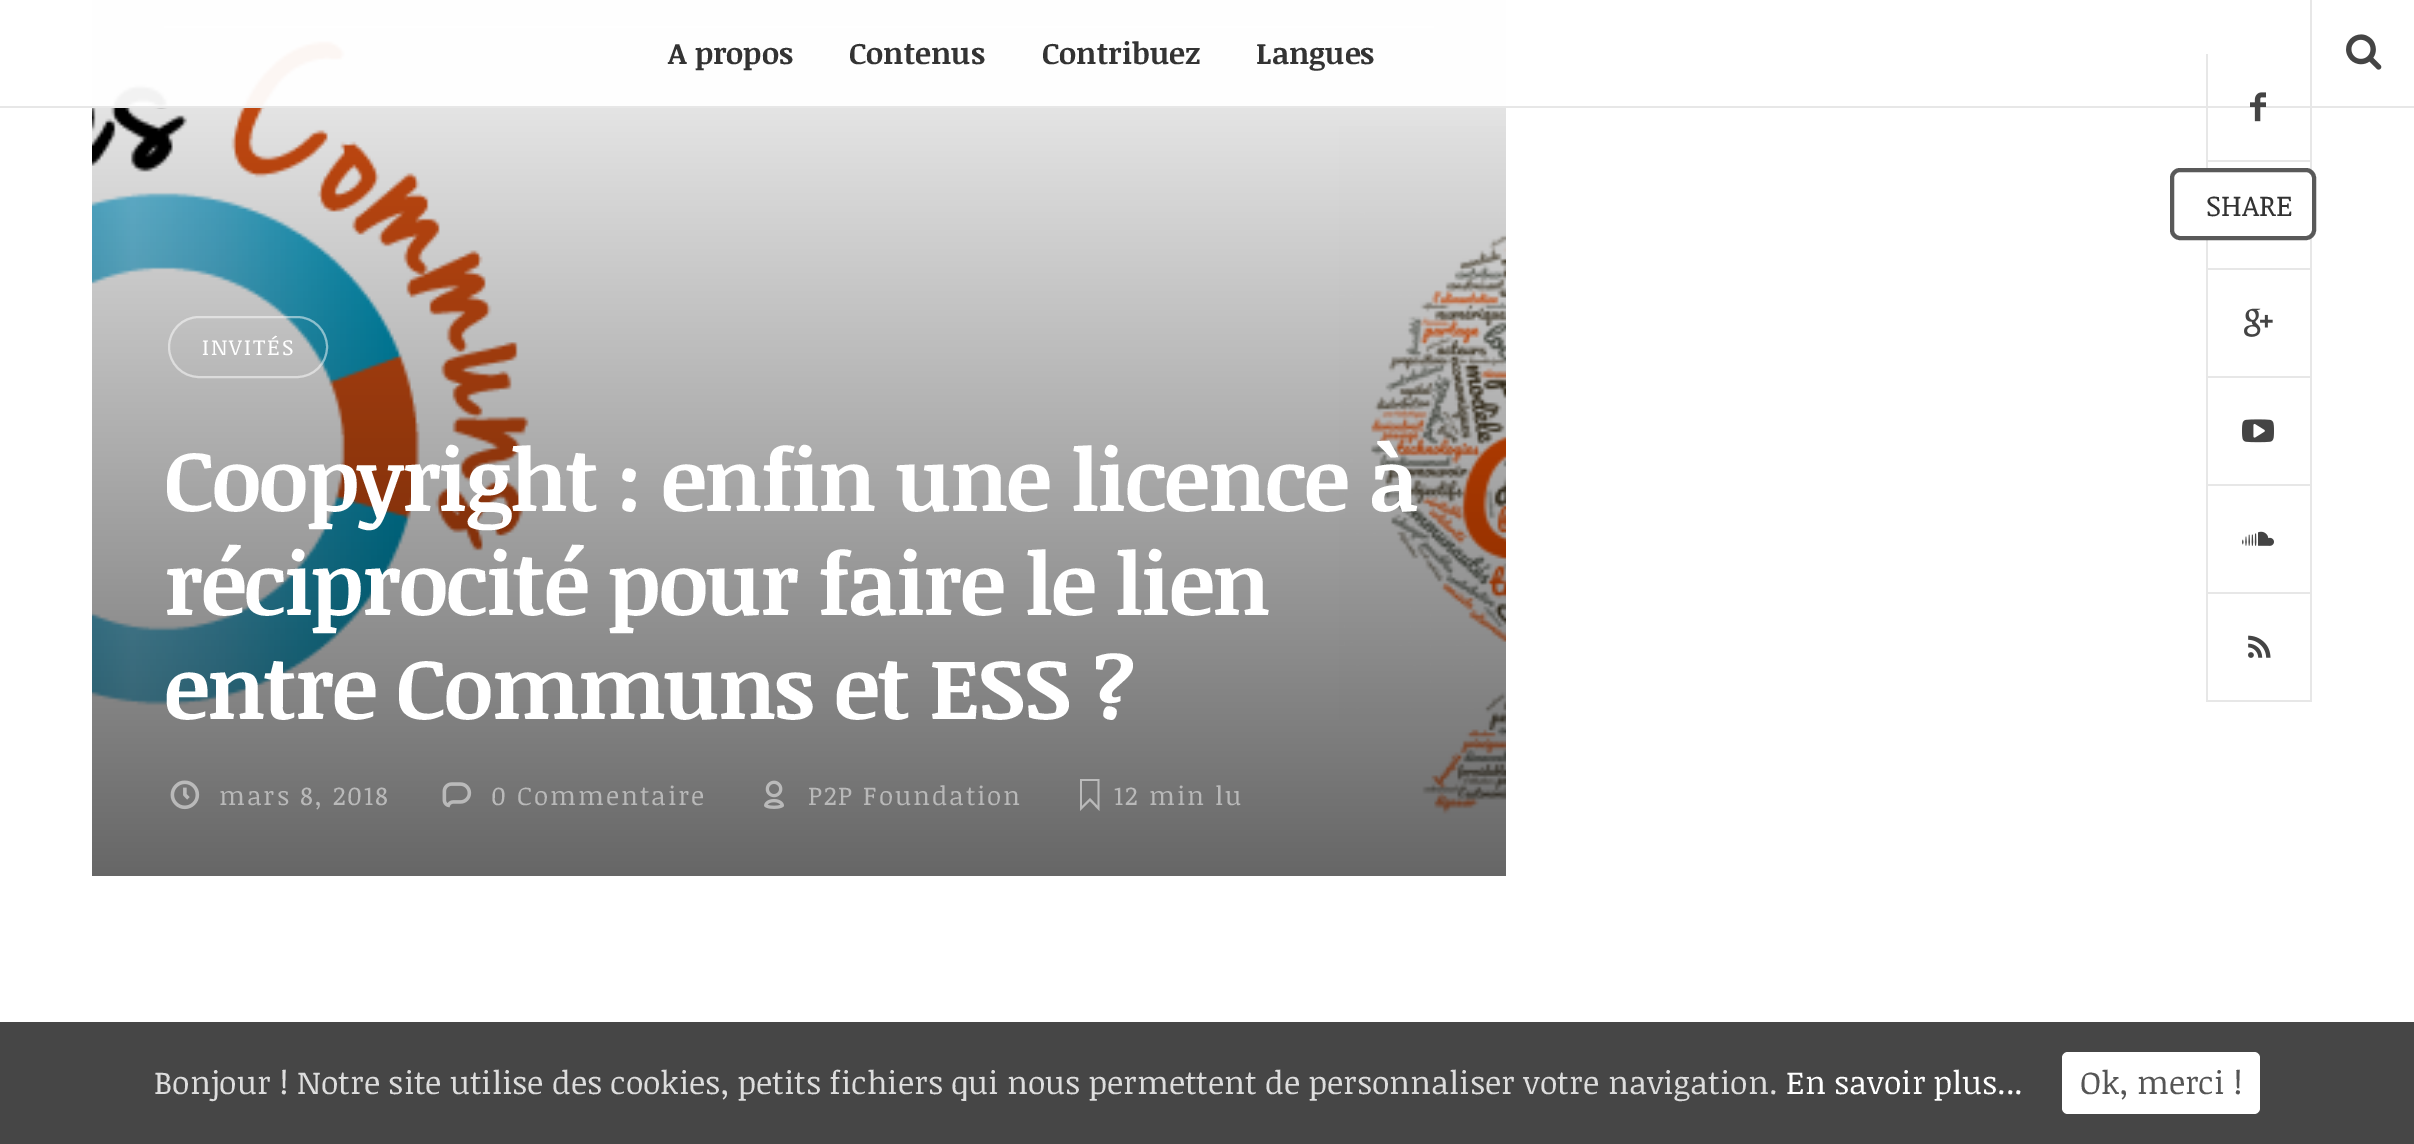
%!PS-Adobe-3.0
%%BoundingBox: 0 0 2414 1144
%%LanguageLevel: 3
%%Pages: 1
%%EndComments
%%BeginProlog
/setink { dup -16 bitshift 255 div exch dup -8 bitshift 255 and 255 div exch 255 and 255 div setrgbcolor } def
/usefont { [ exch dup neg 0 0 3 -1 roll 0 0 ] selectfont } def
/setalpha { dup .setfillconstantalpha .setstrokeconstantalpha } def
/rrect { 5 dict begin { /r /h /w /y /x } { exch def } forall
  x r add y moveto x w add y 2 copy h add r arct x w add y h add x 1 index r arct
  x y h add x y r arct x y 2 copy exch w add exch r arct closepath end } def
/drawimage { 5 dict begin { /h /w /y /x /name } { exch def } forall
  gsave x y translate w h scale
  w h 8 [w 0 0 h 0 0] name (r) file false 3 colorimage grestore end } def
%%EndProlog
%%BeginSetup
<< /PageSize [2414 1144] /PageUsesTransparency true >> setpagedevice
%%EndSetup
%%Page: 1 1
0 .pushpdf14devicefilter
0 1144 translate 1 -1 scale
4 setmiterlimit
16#FFFFFF setink
0 0 2414 1144 rectfill
(img7.raw) 92 0 1414 876 drawimage
[
    [164 26 1270 2 16#FBFBFB]
] { aload pop setink rectfill } forall
0.95 setalpha
[
    [92 0 1414 106 16#FFFFFF]
] { aload pop setink rectfill } forall
1 setalpha
[
    [0 106 2414 2 16#E7E7E7]
] { aload pop setink rectfill } forall
/NoticiaText-Bold 30 usefont
16#333333 setink
[
    [(A propos) 668 64]
    [(Contenus) 849 64]
    [(Contribuez) 1042 64]
    [(Langues) 1256 64]
] { aload pop moveto show } forall
[
    [2310 0 2 702 16#E7E7E7]
    [2206 160 106 2 16#E7E7E7]
    [2206 54 2 108 16#E7E7E7]
] { aload pop setink rectfill } forall
(img1.raw) 2250 92 16 30 drawimage
[
    [2206 268 106 2 16#E7E7E7]
    [2206 162 2 108 16#E7E7E7]
    [2206 376 106 2 16#E7E7E7]
    [2206 270 2 108 16#E7E7E7]
] { aload pop setink rectfill } forall
(img2.raw) 2244 308 29 29 drawimage
2206 484 106 2 rectfill
2206 378 2 108 rectfill
(img3.raw) 2242 419 32 24 drawimage
2206 592 106 2 rectfill
2206 486 2 108 rectfill
(img4.raw) 2242 531 32 15 drawimage
2206 700 106 2 rectfill
2206 594 2 108 rectfill
(img5.raw) 2248 635 23 23 drawimage
(img6.raw) 2346 34 36 36 drawimage
16#FFFFFF setink
2170 168 146 72 10 rrect fill
0.65 setalpha
16#000000 setink
4 setlinewidth
2172 170 142 68 8 rrect stroke
/NoticiaText-Regular 29 usefont
1 setalpha
16#333333 setink
2206 216 moveto (SHARE) show
0.5 setalpha
16#FFFFFF setink
2 setlinewidth
169 317 158 60 30 rrect stroke
/NoticiaText-Regular 22 usefont
1 setalpha
202 355 moveto 2 0 (INVITÉS) ashow
/NoticiaText-Bold 86.4 usefont
164 511 moveto -2 0 (Coopyright : enfin une licence à) ashow
164 615 moveto -2 0 (réciprocité pour faire le lien) ashow
164 719 moveto -2 0 (entre Communs et ESS ?) ashow
(img8.raw) 170 780 30 30 drawimage
/NoticiaText-Regular 26 usefont
16#B9B9B9 setink
219 805 moveto 2 0 (mars 8, 2018) ashow
(img9.raw) 442 782 30 26 drawimage
491 805 moveto 2 0 (0 Commentaire) ashow
(img10.raw) 764 780 20 29 drawimage
808 805 moveto 2 0 (P2P Foundation) ashow
0.5 setalpha
16#FFFFFF setink
1080 808 moveto 1080 779 lineto 1099.5 779 lineto 1099.5 811 lineto 1090 801 lineto 1080 811 lineto closepath 1082 806 moveto 1090 798 lineto 1097.5 806 lineto 1097.5 781 lineto 1082 781 lineto closepath fill
1 setalpha
16#B9B9B9 setink
1114 805 moveto 2 0 (12 min lu) ashow
16#464646 setink
0 1022 2414 122 rectfill
/NoticiaText-Regular 32 usefont
16#DDDDDD setink
154 1094 moveto (Bonjour ! Notre site utilise des cookies, petits fichiers qui nous permettent de personnaliser votre navigation.) show
16#FFFFFF setink
1786 1094 moveto (En savoir plus...) show
2062 1052 198 62 6 rrect fill
16#555555 setink
2080 1094 moveto (Ok, merci !) show
.poppdf14devicefilter showpage
%%EOF
